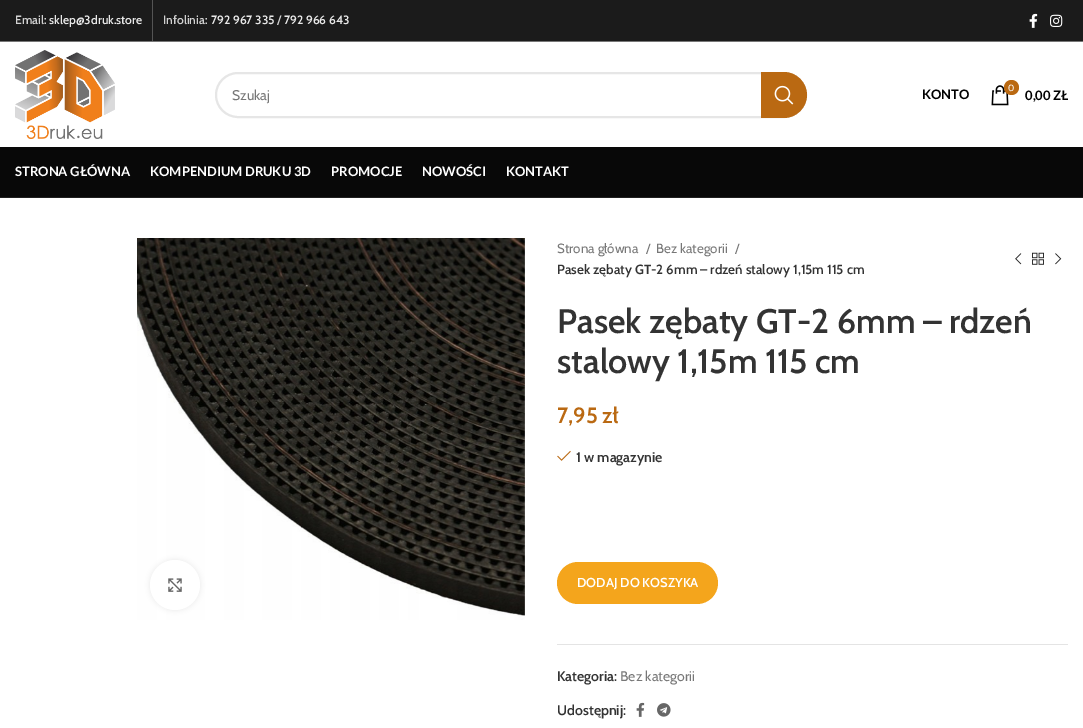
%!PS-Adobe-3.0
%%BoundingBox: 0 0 1083 728
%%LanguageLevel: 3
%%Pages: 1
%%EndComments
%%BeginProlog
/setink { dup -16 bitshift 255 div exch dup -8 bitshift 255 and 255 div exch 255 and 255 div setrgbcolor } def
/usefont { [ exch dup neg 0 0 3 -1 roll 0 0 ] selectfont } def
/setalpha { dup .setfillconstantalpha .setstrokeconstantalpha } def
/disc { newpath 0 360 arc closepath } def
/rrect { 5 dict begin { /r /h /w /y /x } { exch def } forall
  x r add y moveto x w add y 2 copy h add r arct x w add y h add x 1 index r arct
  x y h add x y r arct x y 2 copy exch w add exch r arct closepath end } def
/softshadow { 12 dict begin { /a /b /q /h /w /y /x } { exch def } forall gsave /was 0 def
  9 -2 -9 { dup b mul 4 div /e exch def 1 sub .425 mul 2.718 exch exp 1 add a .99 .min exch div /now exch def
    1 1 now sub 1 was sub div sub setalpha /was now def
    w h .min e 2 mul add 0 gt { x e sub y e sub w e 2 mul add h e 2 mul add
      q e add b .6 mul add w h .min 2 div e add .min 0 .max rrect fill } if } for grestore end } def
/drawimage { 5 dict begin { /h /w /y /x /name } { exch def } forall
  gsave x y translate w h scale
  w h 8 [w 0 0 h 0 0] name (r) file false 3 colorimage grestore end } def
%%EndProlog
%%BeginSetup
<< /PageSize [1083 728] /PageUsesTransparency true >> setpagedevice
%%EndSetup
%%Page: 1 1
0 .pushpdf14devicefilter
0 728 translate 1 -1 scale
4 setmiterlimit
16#FFFFFF setink
0 0 1083 728 rectfill
16#1B1B1B setink
0 0 1083 41 rectfill
16#777777 setink
0 41 1083 1 rectfill
/Cabin-SemiBold 12 usefont
16#D1D1D1 setink
15 24 moveto (Email:) show
16#E8E8E8 setink
49 24 moveto (sklep@3druk.store) show
16#545454 setink
152 0 1 41 rectfill
16#D1D1D1 setink
163 24 moveto (Infolinia:) show
16#E8E8E8 setink
211 24 moveto (792 967 335) show
16#D1D1D1 setink
277 24 moveto (/) show
16#E8E8E8 setink
284 24 moveto (792 966 643) show
(img1.raw) 1029 13 9 15 drawimage
(img2.raw) 1050 14 13 13 drawimage
(img3.raw) 15 50 100 89 drawimage
16#E6E6E6 setink
2 setlinewidth
216 73 590 44 22 rrect stroke
/Cabin-Regular 14 usefont
16#777777 setink
232 100 moveto (Szukaj) show
16#BA6912 setink
761 72 moveto 784 72 lineto 796.5 72 807 82.5 807 95 curveto 807 107.5 796.5 118 784 118 curveto 761 118 lineto closepath fill
(img4.raw) 774 85 20 20 drawimage
/Lato-Bold 13 usefont
16#000000 setink
922 99 moveto (KONTO) show
(img5.raw) 991 85 18 21 drawimage
16#BA6912 setink
1011.5 87.5 7.5 disc fill
/Cabin-Regular 9 usefont
16#FFFFFF setink
1008 91 moveto (0) show
/Lato-Bold 13 usefont
16#000000 setink
1025 100 moveto (0,00 ZŁ) show
16#080808 setink
0 147 1083 50 rectfill
16#202020 setink
0 197 1083 1 rectfill
16#FFFFFF setink
[
    [(STRONA GŁÓWNA) 15 176]
    [(KOMPENDIUM DRUKU 3D) 150 176]
    [(PROMOCJE) 331 176]
    [(NOWOŚCI) 422 176]
    [(KONTAKT) 506 176]
] { aload pop moveto show } forall
(img6.raw) 137 238 388 382 drawimage
16#000000 setink
150 560 50 50 25 2.5 0.08 softshadow
16#FFFFFF setink
175 585 25 disc fill
(img7.raw) 168 578 14 14 drawimage
/Cabin-Regular 13.3 usefont
16#777777 setink
[
    [(Strona główna) 557 253]
    [(/) 646 253]
    [(Bez kategorii) 656 253]
    [(/) 735 253]
] { aload pop moveto show } forall
/Cabin-SemiBold 13.3 usefont
16#333333 setink
557 274 moveto (Pasek zębaty GT-2 6mm – rdzeń stalowy 1,15m 115 cm) show
(img8.raw) 1015 253 7 12 drawimage
(img9.raw) 1032 252 12 13 drawimage
(img10.raw) 1055 253 7 12 drawimage
/Cabin-SemiBold 34 usefont
557 333 moveto (Pasek zębaty GT-2 6mm – rdzeń) show
557 373 moveto (stalowy 1,15m 115 cm) show
/Cabin-SemiBold 22 usefont
16#BA6912 setink
557 423 moveto (7,95 zł) show
(img11.raw) 557 450 14 11 drawimage
/Cabin-SemiBold 14 usefont
16#333333 setink
576 462 moveto (1 w magazynie) show
16#F4A51C setink
557 562 161 42 21 rrect fill
/Cabin-SemiBold 13 usefont
16#FFFFFF setink
577 587 moveto (DODAJ DO KOSZYKA) show
16#E4E4E4 setink
557 644 511 1 rectfill
/Cabin-SemiBold 14 usefont
16#333333 setink
557 681 moveto (Kategoria:) show
/Cabin-Regular 14 usefont
16#777777 setink
620 681 moveto (Bez kategorii) show
/Cabin-SemiBold 14 usefont
16#333333 setink
557 715 moveto (Udostępnij:) show
(img12.raw) 636 702 9 15 drawimage
(img13.raw) 657 703 14 14 drawimage
.poppdf14devicefilter showpage
%%EOF
